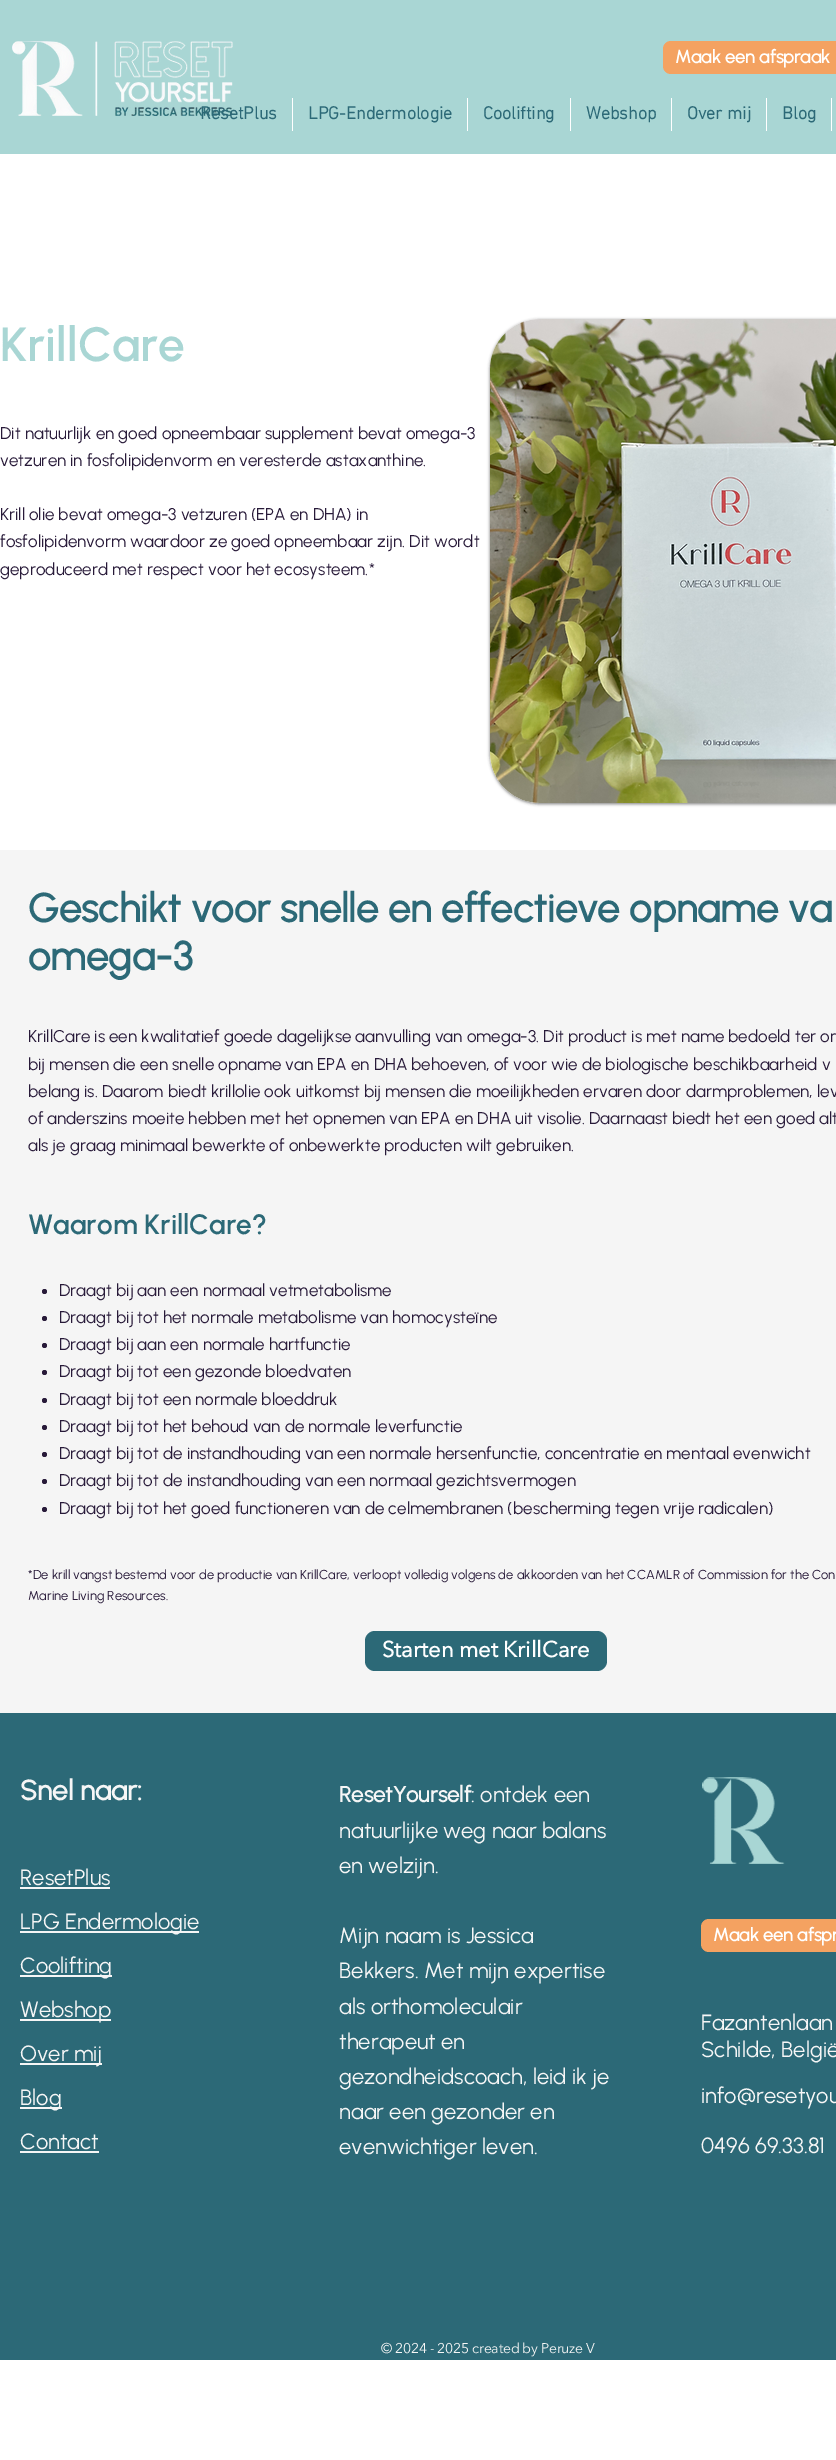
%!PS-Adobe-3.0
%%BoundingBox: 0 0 836 2460
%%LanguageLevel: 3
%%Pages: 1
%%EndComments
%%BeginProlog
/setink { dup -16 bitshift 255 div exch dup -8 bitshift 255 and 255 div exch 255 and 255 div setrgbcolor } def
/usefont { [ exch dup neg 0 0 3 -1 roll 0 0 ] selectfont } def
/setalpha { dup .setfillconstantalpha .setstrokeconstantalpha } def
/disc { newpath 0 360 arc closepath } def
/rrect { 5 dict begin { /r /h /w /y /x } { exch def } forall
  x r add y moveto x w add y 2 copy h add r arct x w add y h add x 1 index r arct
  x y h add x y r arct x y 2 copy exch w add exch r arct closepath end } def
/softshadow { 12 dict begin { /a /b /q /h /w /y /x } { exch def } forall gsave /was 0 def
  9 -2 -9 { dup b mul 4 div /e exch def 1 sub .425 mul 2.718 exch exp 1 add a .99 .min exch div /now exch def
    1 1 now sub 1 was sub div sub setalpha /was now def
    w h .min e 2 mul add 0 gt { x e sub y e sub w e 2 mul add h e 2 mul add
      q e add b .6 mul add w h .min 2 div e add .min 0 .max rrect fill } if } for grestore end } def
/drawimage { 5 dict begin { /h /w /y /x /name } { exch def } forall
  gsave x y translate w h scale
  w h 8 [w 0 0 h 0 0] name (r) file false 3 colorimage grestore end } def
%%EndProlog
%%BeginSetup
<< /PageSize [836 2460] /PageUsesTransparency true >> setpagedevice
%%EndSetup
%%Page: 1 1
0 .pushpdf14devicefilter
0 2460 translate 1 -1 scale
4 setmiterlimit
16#FFFFFF setink
0 0 836 2460 rectfill
16#A9D6D4 setink
0 0 836 154 rectfill
(img1.raw) 12 41 221 75 drawimage
16#F4A261 setink
663 41 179 33 8 rrect fill
/Urbanist-Bold 18 usefont
16#FFFFFF setink
675 63 moveto (Maak een afspraak) show
/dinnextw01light-Bold 18 usefont
16#2C6977 setink
200 119 moveto (ResetPlus) show
16#FFFFFF setink
292 98 1 33 rectfill
16#2C6977 setink
308 119 moveto (LPG-Endermologie) show
16#FFFFFF setink
467 98 1 33 rectfill
16#2C6977 setink
483 119 moveto (Coolifting) show
16#FFFFFF setink
570 98 1 33 rectfill
16#2C6977 setink
586 119 moveto (Webshop) show
16#FFFFFF setink
671 98 1 33 rectfill
16#2C6977 setink
687 119 moveto (Over mij) show
16#FFFFFF setink
766 98 1 33 rectfill
16#2C6977 setink
782 119 moveto (Blog) show
16#FFFFFF setink
831 98 1 33 rectfill
/Urbanist-SemiBold 48 usefont
16#A9D6D4 setink
0 361 moveto (KrillCare) show
/Urbanist-Regular 17 usefont
16#281A39 setink
[
    [(Dit natuurlijk en goed opneembaar supplement bevat omega-3) 0 439]
    [(vetzuren in fosfolipidenvorm en veresterde astaxanthine.) 0 466]
    [(Krill olie bevat omega-3 vetzuren \(EPA en DHA\) in) 0 520]
    [(fosfolipidenvorm waardoor ze goed opneembaar zijn. Dit wordt) 0 547]
    [(geproduceerd met respect voor het ecosysteem.*) 0 575]
] { aload pop moveto show } forall
16#000000 setink
490 320 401 484 50 1.5 0.5 softshadow
16#F6F6F6 setink
490 319 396 484 50 rrect fill
(img2.raw) 490 319 346 484 drawimage
16#F5F5F5 setink
0 850 836 863 rectfill
/Urbanist-Bold 40 usefont
16#2C6977 setink
28 922 moveto (Geschikt voor snelle en effectieve opname va) show
28 970 moveto (omega-3) show
/Urbanist-Regular 17 usefont
16#281A39 setink
[
    [(KrillCare is een kwalitatief goede dagelijkse aanvulling van omega-3. Dit product is met name bedoeld ter on) 28 1042]
    [(bij mensen die een snelle opname van EPA en DHA behoeven, of voor wie de biologische beschikbaarheid v) 28 1070]
    [(belang is. Daarom biedt krillolie ook uitkomst bij mensen die moeilijkheden ervaren door darmproblemen, lev) 28 1097]
    [(of anderszins moeite hebben met het opnemen van EPA en DHA uit visolie. Daarnaast biedt het een goed alt) 28 1124]
    [(als je graag minimaal bewerkte of onbewerkte producten wilt gebruiken.) 28 1151]
] { aload pop moveto show } forall
/Urbanist-SemiBold 28 usefont
16#2C6977 setink
28 1234 moveto (Waarom KrillCare?) show
16#281A39 setink
44.5 1291.5 2.5 disc fill
/Urbanist-Regular 17 usefont
59 1296 moveto (Draagt bij aan een normaal vetmetabolisme) show
44.5 1318.5 2.5 disc fill
59 1323 moveto (Draagt bij tot het normale metabolisme van homocysteïne) show
44.5 1345.5 2.5 disc fill
59 1350 moveto (Draagt bij aan een normale hartfunctie) show
44.5 1372.5 2.5 disc fill
59 1377 moveto (Draagt bij tot een gezonde bloedvaten) show
44.5 1400.5 2.5 disc fill
59 1405 moveto (Draagt bij tot een normale bloeddruk) show
44.5 1427.5 2.5 disc fill
59 1432 moveto (Draagt bij tot het behoud van de normale leverfunctie) show
44.5 1454.5 2.5 disc fill
59 1459 moveto (Draagt bij tot de instandhouding van een normale hersenfunctie, concentratie en mentaal evenwicht) show
44.5 1481.5 2.5 disc fill
59 1486 moveto (Draagt bij tot de instandhouding van een normaal gezichtsvermogen) show
44.5 1509.5 2.5 disc fill
59 1514 moveto (Draagt bij tot het goed functioneren van de celmembranen \(bescherming tegen vrije radicalen\)) show
/Urbanist-Regular 13 usefont
28 1579 moveto (*De krill vangst bestemd voor de productie van KrillCare, verloopt volledig volgens de akkoorden van het CCAMLR of Commission for the Con) show
28 1600 moveto (Marine Living Resources.) show
16#2C6977 setink
365 1631 242 40 10 rrect fill
/AvenirNext-Bold 22 usefont
16#FFFFFF setink
382 1657 moveto (Starten met KrillCare) show
16#2C6977 setink
0 1713 836 647 rectfill
/Urbanist-Bold 28 usefont
16#F6F6F6 setink
20 1800 moveto (Snel naar:) show
/Urbanist-Regular 22 usefont
20 1885 moveto (ResetPlus) show
20 1887 90 2 rectfill
20 1931 179 2 rectfill
20 1929 moveto (LPG Endermologie) show
20 1975 92 2 rectfill
20 1973 moveto (Coolifting) show
20 2019 91 2 rectfill
20 2017 moveto (Webshop) show
20 2063 82 2 rectfill
20 2061 moveto (Over mij) show
20 2107 42 2 rectfill
20 2105 moveto (Blog) show
20 2149 moveto (Contact) show
20 2151 79 2 rectfill
/Urbanist-Bold 22 usefont
339 1802 moveto (ResetYourself) show
/Urbanist-Regular 22 usefont
[
    [(: ontdek een) 471 1802]
    [(natuurlijke weg naar balans) 339 1838]
    [(en welzijn.) 339 1873]
    [(Mijn naam is Jessica) 339 1943]
    [(Bekkers. Met mijn expertise) 339 1978]
    [(als orthomoleculair) 339 2014]
    [(therapeut en) 339 2049]
    [(gezondheidscoach, leid ik je) 339 2084]
    [(naar een gezonder en) 339 2119]
    [(evenwichtiger leven.) 339 2154]
] { aload pop moveto show } forall
(img3.raw) 702 1777 83 87 drawimage
16#F4A261 setink
701 1919 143 33 8 rrect fill
/Urbanist-Bold 18 usefont
16#FFFFFF setink
713 1941 moveto (Maak een afspr) show
/Urbanist-Regular 22 usefont
16#F6F6F6 setink
[
    [(Fazantenlaan) 701 2030]
    [(Schilde, België) 701 2057]
    [(info@resetyou) 701 2103]
    [(0496 69.33.81) 701 2153]
] { aload pop moveto show } forall
/AvenirNext-Regular 14 usefont
381 2353 moveto -0.25 0 (© 2024 - 2025 created by Peruze V) ashow
.poppdf14devicefilter showpage
%%EOF
